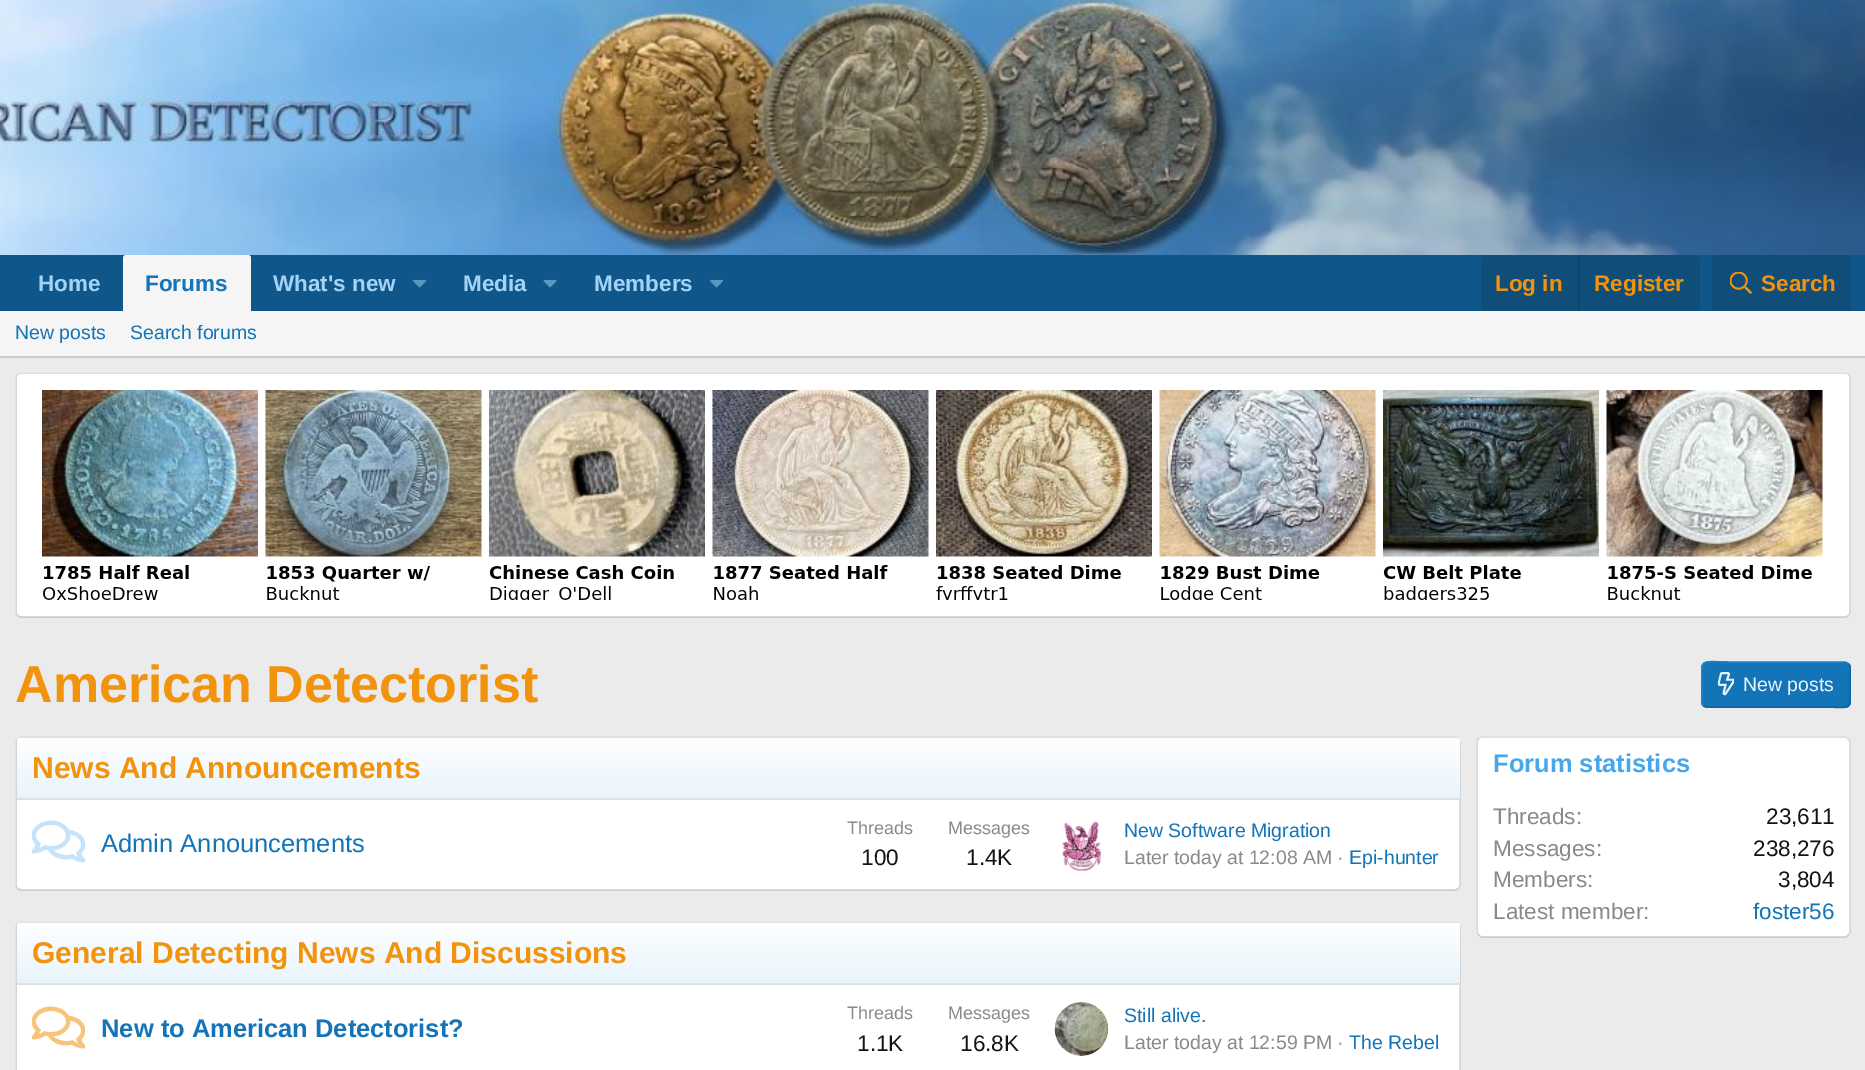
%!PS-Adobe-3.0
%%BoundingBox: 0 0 1865 1070
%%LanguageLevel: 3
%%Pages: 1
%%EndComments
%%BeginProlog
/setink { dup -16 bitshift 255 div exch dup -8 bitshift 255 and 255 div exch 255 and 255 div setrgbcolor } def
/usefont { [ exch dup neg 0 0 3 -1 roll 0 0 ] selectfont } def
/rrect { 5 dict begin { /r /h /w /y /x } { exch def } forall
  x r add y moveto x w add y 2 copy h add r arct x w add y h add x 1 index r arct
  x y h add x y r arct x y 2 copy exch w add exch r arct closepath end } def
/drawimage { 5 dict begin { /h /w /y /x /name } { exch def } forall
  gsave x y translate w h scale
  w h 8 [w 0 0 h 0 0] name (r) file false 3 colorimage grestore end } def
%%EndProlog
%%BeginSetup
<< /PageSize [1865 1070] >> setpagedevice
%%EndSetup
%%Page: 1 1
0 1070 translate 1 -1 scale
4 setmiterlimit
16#EBEBEB setink
0 0 1865 1070 rectfill
(img1.raw) 0 0 1865 255 drawimage
16#0F578A setink
0 255 1865 56 rectfill
/LiberationSans-Bold 22.5 usefont
16#A3D4F5 setink
38 291 moveto (Home) show
16#F5F5F5 setink
126 255 moveto 248 255 lineto 249.5 255 251 256.5 251 258 curveto 251 311 lineto 123 311 lineto 123 258 lineto 123 256.5 124.5 255 126 255 curveto closepath fill
16#1474B8 setink
145 291 moveto (Forums) show
16#A3D4F5 setink
273 291 moveto (What's new) show
(img2.raw) 413 279 13 9 drawimage
463 291 moveto (Media) show
(img3.raw) 543 279 14 9 drawimage
594 291 moveto (Members) show
(img2.raw) 710 279 13 9 drawimage
16#104D78 setink
1487 255 moveto 1694 255 lineto 1697.5 255 1700 257.5 1700 261 curveto 1700 311 lineto 1481 311 lineto 1481 261 lineto 1481 257.5 1483.5 255 1487 255 curveto closepath fill
16#F2930D setink
1495 291 moveto (Log in) show
16#114469 setink
1578 255 2 56 rectfill
16#F2930D setink
1594 291 moveto (Register) show
16#104D78 setink
1718 255 moveto 1845 255 lineto 1848.5 255 1851 257.5 1851 261 curveto 1851 311 lineto 1712 311 lineto 1712 261 lineto 1712 257.5 1714.5 255 1718 255 curveto closepath fill
(img4.raw) 1730 272 22 22 drawimage
16#F2930D setink
1761 291 moveto (Search) show
16#F5F5F5 setink
0 311 1865 45 rectfill
16#CCCCCC setink
0 356 1865 2 rectfill
/LiberationSans-Regular 19.5 usefont
16#1474B8 setink
15 339 moveto (New posts) show
130 339 moveto (Search forums) show
16#FFFFFF setink
15 372 1836 246 6 rrect fill
16#E0E0E0 setink
1.5 setlinewidth
17.5 374.5 moveto 18.5 373.5 19.5 373 21 373 curveto 1845 373 lineto 1846.5 373 1847.5 373.5 1848.5 374.5 curveto stroke
16#D6D6D6 setink
1848.5 374.5 moveto 1849.5 375.5 1850 376.5 1850 378 curveto 1850 612 lineto 1850 613.5 1849.5 614.5 1848.5 615.5 curveto stroke
16#CCCCCC setink
1848.5 615.5 moveto 1847.5 616.5 1846.5 617 1845 617 curveto 21 617 lineto 19.5 617 18.5 616.5 17.5 615.5 curveto stroke
16#D6D6D6 setink
17.5 615.5 moveto 16.5 614.5 16 613.5 16 612 curveto 16 378 lineto 16 376.5 16.5 375.5 17.5 374.5 curveto stroke
(img5.raw) 42 390 1781 210 drawimage
/LiberationSans-Bold 52 usefont
16#F2930D setink
15 702 moveto (American Detectorist) show
16#1474B8 setink
1701 662 150 46 6 rrect fill
16#1265A1 setink
1848.5 664 moveto 1851 666 1850 670.5 1850 673 curveto 1850 685 lineto 1850 712.5 1853.5 707 1822 707 curveto 1707 707 lineto 1703.5 705.5 lineto stroke
16#1782CF setink
1703.5 705.5 moveto 1701 703.5 1702 699 1702 696 curveto 1702 685 lineto 1702 657 1698.5 662 1730 662 curveto 1845 662 lineto 1848.5 664 lineto stroke
(img6.raw) 1717 672 17 24 drawimage
/LiberationSans-Regular 19.5 usefont
16#E8F4FC setink
1743 691 moveto (New posts) show
16#FFFFFF setink
15 737 1446 154 6 rrect fill
16#E0E0E0 setink
17.5 739 moveto 18.5 738 19.5 737 21 737 curveto 1455 737 lineto 1456.5 737 1457.5 738 1458.5 739 curveto stroke
16#D6D6D6 setink
1458.5 739 moveto 1459.5 740 1460 741 1460 742.5 curveto 1460 885 lineto 1460 886.5 1459.5 887.5 1458.5 888.5 curveto stroke
16#CCCCCC setink
1458.5 888.5 moveto 1457.5 889.5 1456.5 890 1455 890 curveto 21 890 lineto 19.5 890 18.5 889.5 17.5 888.5 curveto stroke
16#D6D6D6 setink
17.5 888.5 moveto 16.5 887.5 16 886.5 16 885 curveto 16 742.5 lineto 16 741 16.5 740 17.5 739 curveto stroke
gsave 22 738 moveto 1455 738 lineto 1458 738 1460 740 1460 743 curveto 1460 798 lineto 17 798 lineto 17 743 lineto 17 740 19 738 22 738 curveto closepath clip newpath
<< /ShadingType 2 /ColorSpace /DeviceRGB /Coords [738 798 738 738] /Extend [true true] /Function << /FunctionType 2 /Domain [0 1] /C0 [0.91 0.957 0.988] /C1 [1 1 1] /N 1 >> >> shfill grestore
16#E0E0E0 setink
17 798 1443 2 rectfill
/LiberationSans-Bold 30 usefont
16#F2930D setink
32 778 moveto (News And Announcements) show
(img7.raw) 31 820 55 43 drawimage
/LiberationSans-Regular 25.5 usefont
16#1474B8 setink
101 852 moveto (Admin Announcements) show
/LiberationSans-Regular 18 usefont
16#8A8A8A setink
847 834 moveto (Threads) show
/LiberationSans-Regular 22.5 usefont
16#141414 setink
861 865 moveto (100) show
/LiberationSans-Regular 18 usefont
16#8A8A8A setink
948 834 moveto (Messages) show
/LiberationSans-Regular 22.5 usefont
16#141414 setink
966 865 moveto (1.4K) show
(img8.raw) 1062 821 40 50 drawimage
/LiberationSans-Regular 19.5 usefont
16#1474B8 setink
1124 837 moveto (New Software Migration) show
16#8A8A8A setink
1124 864 moveto (Later today at 12:08 AM ·) show
16#1474B8 setink
1349 864 moveto (Epi-hunter) show
16#FFFFFF setink
15 921 1446 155 6 rrect fill
16#E0E0E0 setink
17.5 923.5 moveto 18.5 922.5 19.5 922 21 922 curveto 1455 922 lineto 1456.5 922 1457.5 922.5 1458.5 923.5 curveto stroke
16#D6D6D6 setink
1458.5 923.5 moveto 1459.5 924.5 1460 925.5 1460 927 curveto 1460 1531.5 lineto 1460 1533 1459.5 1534 1458.5 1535 curveto stroke
17.5 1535 moveto 16.5 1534 16 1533 16 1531.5 curveto 16 927 lineto 16 925.5 16.5 924.5 17.5 923.5 curveto stroke
gsave 22 923 moveto 1455 923 lineto 1458 923 1460 925 1460 928 curveto 1460 983 lineto 17 983 lineto 17 928 lineto 17 925 19 923 22 923 curveto closepath clip newpath
<< /ShadingType 2 /ColorSpace /DeviceRGB /Coords [738 983 738 923] /Extend [true true] /Function << /FunctionType 2 /Domain [0 1] /C0 [0.91 0.957 0.988] /C1 [1 1 1] /N 1 >> >> shfill grestore
16#E0E0E0 setink
17 983 1443 2 rectfill
/LiberationSans-Bold 30 usefont
16#F2930D setink
32 963 moveto (General Detecting News And Discussions) show
(img9.raw) 31 1006 55 43 drawimage
/LiberationSans-Bold 25.5 usefont
16#1474B8 setink
101 1037 moveto (New to American Detectorist?) show
/LiberationSans-Regular 18 usefont
16#8A8A8A setink
847 1019 moveto (Threads) show
/LiberationSans-Regular 22.5 usefont
16#141414 setink
857 1051 moveto (1.1K) show
/LiberationSans-Regular 18 usefont
16#8A8A8A setink
948 1019 moveto (Messages) show
/LiberationSans-Regular 22.5 usefont
16#141414 setink
960 1051 moveto (16.8K) show
(img10.raw) 1054 1002 55 54 drawimage
/LiberationSans-Regular 19.5 usefont
16#1474B8 setink
1124 1022 moveto (Still alive.) show
16#8A8A8A setink
1124 1049 moveto (Later today at 12:59 PM ·) show
16#1474B8 setink
1349 1049 moveto (The Rebel) show
16#FFFFFF setink
1476 737 375 201 6 rrect fill
16#E0E0E0 setink
1478.5 739 moveto 1479.5 738 1480.5 737 1482 737 curveto 1845 737 lineto 1846.5 737 1847.5 738 1848.5 739 curveto stroke
16#D6D6D6 setink
1848.5 739 moveto 1849.5 740 1850 741 1850 742.5 curveto 1850 931.5 lineto 1850 933 1849.5 934 1848.5 935 curveto stroke
16#CCCCCC setink
1848.5 935 moveto 1847.5 936 1846.5 937 1845 937 curveto 1482 937 lineto 1480.5 937 1479.5 936 1478.5 935 curveto stroke
16#D6D6D6 setink
1478.5 935 moveto 1477.5 934 1477 933 1477 931.5 curveto 1477 742.5 lineto 1477 741 1477.5 740 1478.5 739 curveto stroke
/LiberationSans-Bold 25.5 usefont
16#47A7EB setink
1493 772 moveto (Forum statistics) show
/LiberationSans-Regular 22.5 usefont
16#8A8A8A setink
1493 824 moveto (Threads:) show
16#141414 setink
1766 824 moveto (23,611) show
16#8A8A8A setink
1493 856 moveto (Messages:) show
16#141414 setink
1753 856 moveto (238,276) show
16#8A8A8A setink
1493 887 moveto (Members:) show
16#141414 setink
1778 887 moveto (3,804) show
16#8A8A8A setink
1493 919 moveto (Latest member:) show
16#1474B8 setink
1753 919 moveto (foster56) show
showpage
%%EOF
